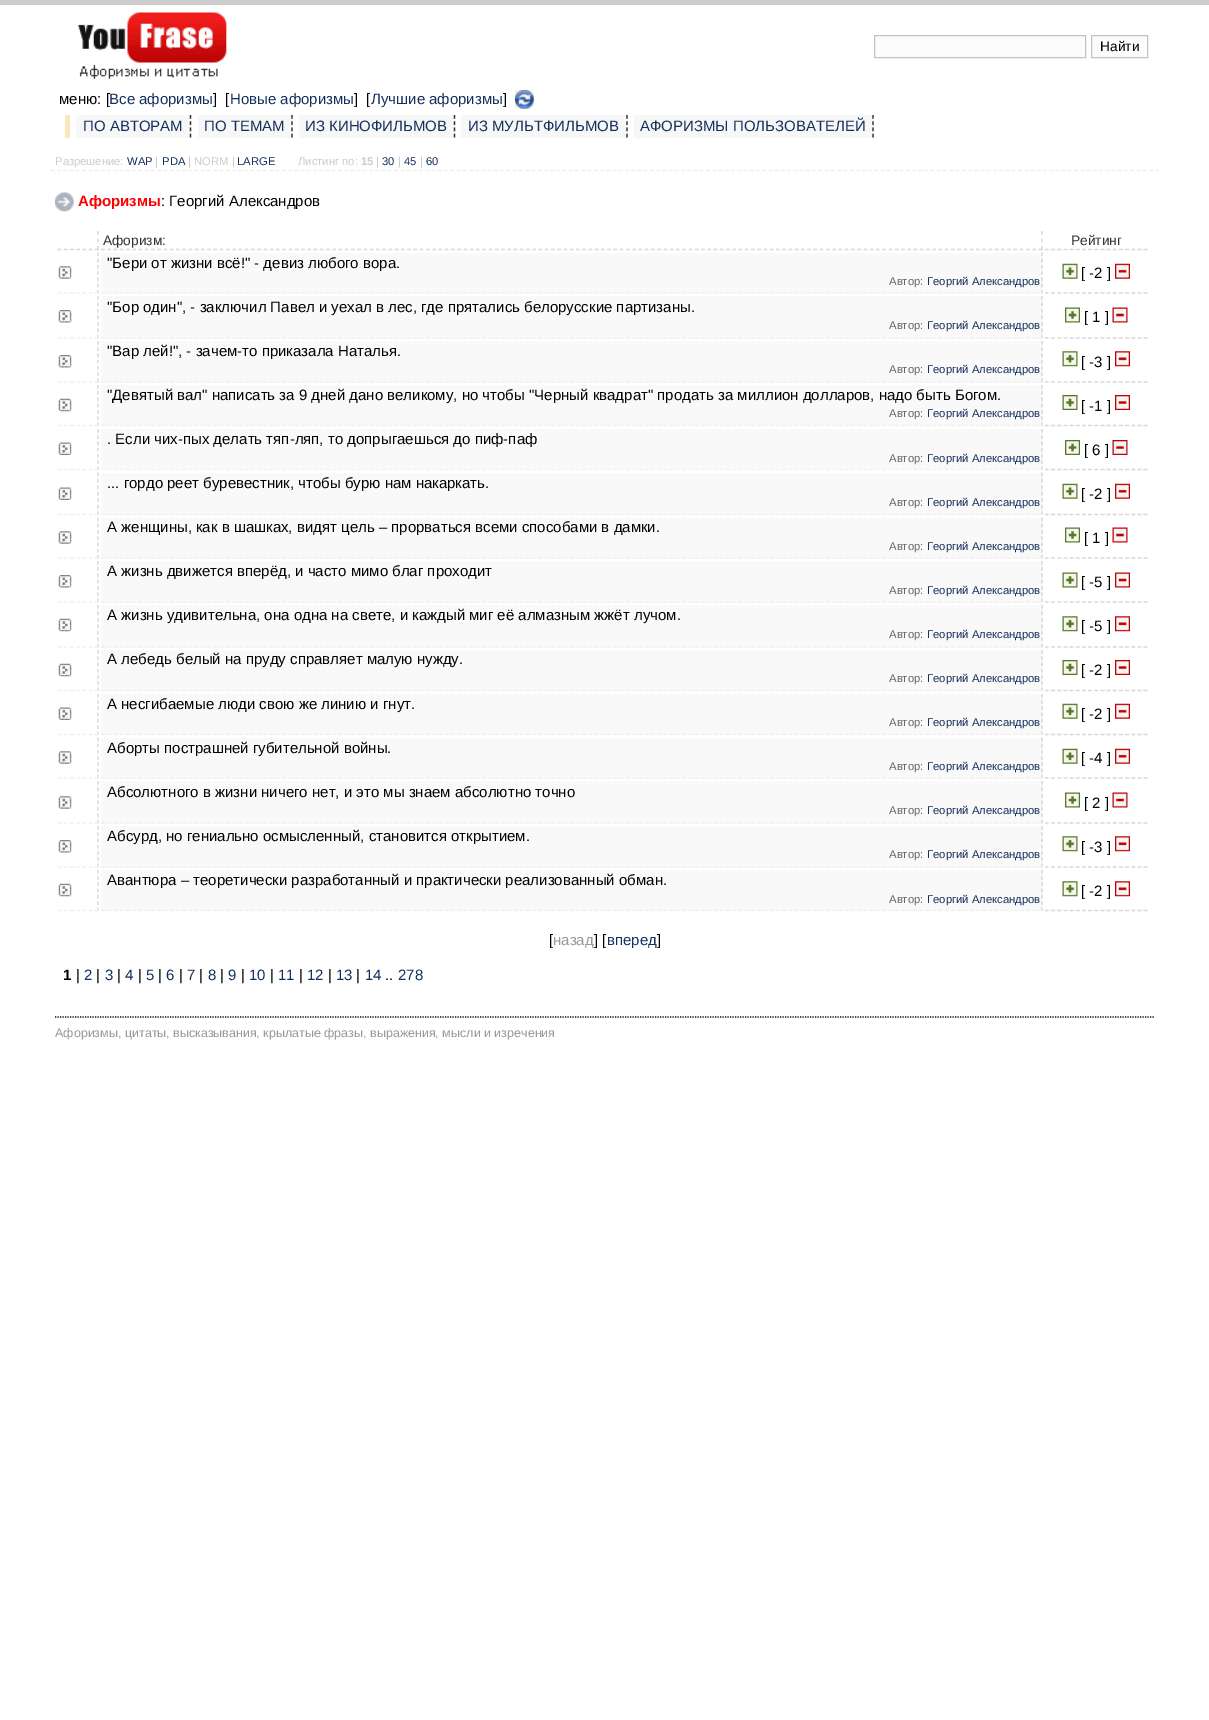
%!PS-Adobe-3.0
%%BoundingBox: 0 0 1209 1720
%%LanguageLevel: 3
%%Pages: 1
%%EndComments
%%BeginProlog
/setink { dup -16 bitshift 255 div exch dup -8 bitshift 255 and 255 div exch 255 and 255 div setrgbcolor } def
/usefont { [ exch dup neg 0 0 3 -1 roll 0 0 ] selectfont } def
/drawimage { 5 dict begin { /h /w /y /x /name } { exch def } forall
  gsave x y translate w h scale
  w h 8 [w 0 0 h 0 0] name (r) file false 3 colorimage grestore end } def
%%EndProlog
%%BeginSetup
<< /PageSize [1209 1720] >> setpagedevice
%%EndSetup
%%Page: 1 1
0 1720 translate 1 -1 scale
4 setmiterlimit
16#FFFFFF setink
0 0 1209 1720 rectfill
16#CCCCCC setink
0 0 1209 5 rectfill
(img1.raw) 77 12 150 67 drawimage
16#FCFCFC setink
874.5 35.5 moveto 1085.5 35.5 lineto 1085.5 57.5 lineto 874.5 57.5 lineto closepath gsave fill grestore
16#C3C3C3 setink
stroke
16#FCFCFC setink
1091.5 35.5 moveto 1147.5 35.5 lineto 1147.5 57.5 lineto 1091.5 57.5 lineto closepath gsave fill grestore
16#C3C3C3 setink
stroke
/LiberationSans-Regular 13.75 usefont
16#000000 setink
1100 51 moveto (Найти) show
/LiberationSans-Regular 15 usefont
59 104 moveto (меню: [) show
16#14305C setink
109 104 moveto (Все афоризмы) show
16#000000 setink
213 104 moveto (]  [) show
16#14305C setink
230 104 moveto (Новые афоризмы) show
16#000000 setink
354 104 moveto (]  [) show
16#14305C setink
371 104 moveto (Лучшие афоризмы) show
16#000000 setink
503 104 moveto (]) show
(img2.raw) 515 90 19 19 drawimage
16#FBE7BD setink
65 115 5 23 rectfill
16#F7F7F7 setink
76 115 115 23 rectfill
16#333333 setink
1.2 setlinewidth
[3.75 2.5] 0 setdash
190.5 115 moveto 190.5 137.5 lineto stroke
16#14305C setink
83 131 moveto (ПО АВТОРАМ) show
16#F7F7F7 setink
198 115 95 23 rectfill
16#333333 setink
292 115 moveto 292 137.5 lineto stroke
16#14305C setink
204 131 moveto (ПО ТЕМАМ) show
16#F7F7F7 setink
299 115 156 23 rectfill
16#333333 setink
454.5 115 moveto 454.5 137.5 lineto stroke
16#14305C setink
305 131 moveto (ИЗ КИНОФИЛЬМОВ) show
16#F7F7F7 setink
461 115 167 23 rectfill
16#333333 setink
627 115 moveto 627 137.5 lineto stroke
16#14305C setink
468 131 moveto (ИЗ МУЛЬТФИЛЬМОВ) show
16#F7F7F7 setink
634 115 240 23 rectfill
16#333333 setink
873 115 moveto 873 137.5 lineto stroke
16#14305C setink
640 131 moveto (АФОРИЗМЫ ПОЛЬЗОВАТЕЛЕЙ) show
/LiberationSans-Regular 11.25 usefont
16#CCCCCC setink
55 165 moveto (Разрешение:) show
16#14305C setink
127 165 moveto (WAP) show
16#CCCCCC setink
155 165 moveto (|) show
16#14305C setink
162 165 moveto (PDA) show
16#CCCCCC setink
188 165 moveto (| NORM |) show
16#14305C setink
237 165 moveto (LARGE) show
16#CCCCCC setink
298 165 moveto (Листинг по:) show
/LiberationSans-Bold 11.25 usefont
361 165 moveto (15) show
/LiberationSans-Regular 11.25 usefont
376 165 moveto (|) show
16#14305C setink
382 165 moveto (30) show
16#CCCCCC setink
398 165 moveto (|) show
16#14305C setink
404 165 moveto (45) show
16#CCCCCC setink
420 165 moveto (|) show
16#14305C setink
426 165 moveto (60) show
16#EFEFEF setink
[3.75 2.49] 0 setdash
51 170.5 moveto 1159 170.5 lineto stroke
(img3.raw) 55 192 19 20 drawimage
/LiberationSans-Bold 15 usefont
16#FF0000 setink
78 206 moveto (Афоризмы) show
/LiberationSans-Regular 15 usefont
16#000000 setink
161 206 moveto (: Георгий Александров) show
16#D8D8D8 setink
[] 0 setdash
98 231 moveto 98 235 lineto 98 239 moveto 98 242.5 lineto 98 246 moveto 98 250 lineto stroke
[3.75 2.5] 0 setdash
57.5 249.5 moveto 99 249.5 lineto stroke
[] 0 setdash
1042 231 moveto 1042 235 lineto 1042 239 moveto 1042 242.5 lineto 1042 246 moveto 1042 250 lineto stroke
[3.75 2.5] 0 setdash
101 249.5 moveto 1042.5 249.5 lineto stroke
/LiberationSans-Regular 13.75 usefont
16#333333 setink
103 245 moveto (Афоризм:) show
16#D8D8D8 setink
[3.75 2.42] 0 setdash
1045 249.5 moveto 1147.5 249.5 lineto stroke
16#333333 setink
1071 245 moveto (Рейтинг) show
16#D8D8D8 setink
[3.75 2.5] 0 setdash
98 252.5 moveto 98 294 lineto stroke
16#F0F0F0 setink
57.5 293 moveto 99 293 lineto stroke
(img4.raw) 58 266 14 13 drawimage
16#F9F9F9 setink
101 253 942 41 rectfill
16#D8D8D8 setink
1042 252.5 moveto 1042 294 lineto stroke
16#F0F0F0 setink
101 293 moveto 1042.5 293 lineto stroke
/LiberationSans-Regular 15 usefont
16#000000 setink
107 268 moveto ("Бери от жизни всё!" - девиз любого вора.) show
/LiberationSans-Regular 11.25 usefont
16#666666 setink
889 285 moveto (Автор:) show
16#14305C setink
927 285 moveto (Георгий Александров) show
16#D8D8D8 setink
[3.75 2.42] 0 setdash
1045 293 moveto 1147.5 293 lineto stroke
(img5.raw) 1062 263 16 16 drawimage
/LiberationSans-Regular 15 usefont
16#000000 setink
1081 278 moveto ([ -2 ]) show
(img6.raw) 1115 263 15 16 drawimage
16#D8D8D8 setink
[3.75 2.71] 0 setdash
98 296 moveto 98 339 lineto stroke
16#F0F0F0 setink
[3.75 2.5] 0 setdash
57.5 338 moveto 99 338 lineto stroke
(img7.raw) 58 310 14 13 drawimage
16#F9F9F9 setink
101 296 942 43 rectfill
16#D8D8D8 setink
[3.75 2.71] 0 setdash
1042 296 moveto 1042 339 lineto stroke
16#F0F0F0 setink
[3.75 2.5] 0 setdash
101 338 moveto 1042.5 338 lineto stroke
16#000000 setink
107 312 moveto ("Бор один", - заключил Павел и уехал в лес, где прятались белорусские партизаны.) show
/LiberationSans-Regular 11.25 usefont
16#666666 setink
889 329 moveto (Автор:) show
16#14305C setink
927 329 moveto (Георгий Александров) show
16#D8D8D8 setink
[3.75 2.42] 0 setdash
1045 338 moveto 1147.5 338 lineto stroke
(img8.raw) 1065 307 15 16 drawimage
/LiberationSans-Regular 15 usefont
16#000000 setink
1084 322 moveto ([ 1 ]) show
(img9.raw) 1112 307 16 16 drawimage
16#D8D8D8 setink
[3.75 2.5] 0 setdash
98 341 moveto 98 382.5 lineto stroke
16#F0F0F0 setink
57.5 382 moveto 99 382 lineto stroke
(img7.raw) 58 355 14 13 drawimage
16#F9F9F9 setink
101 341 942 42 rectfill
16#D8D8D8 setink
1042 341 moveto 1042 382.5 lineto stroke
16#F0F0F0 setink
101 382 moveto 1042.5 382 lineto stroke
16#000000 setink
107 356 moveto ("Вар лей!", - зачем-то приказала Наталья.) show
/LiberationSans-Regular 11.25 usefont
16#666666 setink
889 373 moveto (Автор:) show
16#14305C setink
927 373 moveto (Георгий Александров) show
16#D8D8D8 setink
[3.75 2.42] 0 setdash
1045 382 moveto 1147.5 382 lineto stroke
(img10.raw) 1062 351 16 16 drawimage
/LiberationSans-Regular 15 usefont
16#000000 setink
1081 367 moveto ([ -3 ]) show
(img11.raw) 1115 351 15 16 drawimage
16#D8D8D8 setink
[3.75 2.5] 0 setdash
98 385 moveto 98 426 lineto stroke
16#F0F0F0 setink
57.5 425.5 moveto 99 425.5 lineto stroke
(img12.raw) 58 398 14 14 drawimage
16#F9F9F9 setink
101 385 942 41 rectfill
16#D8D8D8 setink
1042 385 moveto 1042 426 lineto stroke
16#F0F0F0 setink
101 425.5 moveto 1042.5 425.5 lineto stroke
16#000000 setink
107 400 moveto ("Девятый вал" написать за 9 дней дано великому, но чтобы "Черный квадрат" продать за миллион долларов, надо быть Богом.) show
/LiberationSans-Regular 11.25 usefont
16#666666 setink
889 417 moveto (Автор:) show
16#14305C setink
927 417 moveto (Георгий Александров) show
16#D8D8D8 setink
[3.75 2.42] 0 setdash
1045 425.5 moveto 1147.5 425.5 lineto stroke
(img13.raw) 1062 395 16 15 drawimage
/LiberationSans-Regular 15 usefont
16#000000 setink
1081 411 moveto ([ -1 ]) show
(img14.raw) 1115 395 15 15 drawimage
16#D8D8D8 setink
[3.75 2.5] 0 setdash
98 429 moveto 98 470 lineto stroke
16#F0F0F0 setink
57.5 469.5 moveto 99 469.5 lineto stroke
(img15.raw) 58 442 14 13 drawimage
16#F9F9F9 setink
101 429 942 41 rectfill
16#D8D8D8 setink
1042 429 moveto 1042 470 lineto stroke
16#F0F0F0 setink
101 469.5 moveto 1042.5 469.5 lineto stroke
16#000000 setink
107 444 moveto (. Если чих-пых делать тяп-ляп, то допрыгаешься до пиф-паф) show
/LiberationSans-Regular 11.25 usefont
16#666666 setink
889 462 moveto (Автор:) show
16#14305C setink
927 462 moveto (Георгий Александров) show
16#D8D8D8 setink
[3.75 2.42] 0 setdash
1045 469.5 moveto 1147.5 469.5 lineto stroke
(img16.raw) 1065 440 15 15 drawimage
/LiberationSans-Regular 15 usefont
16#000000 setink
1084 455 moveto ([ 6 ]) show
(img17.raw) 1112 440 16 15 drawimage
16#D8D8D8 setink
[3.75 2.71] 0 setdash
98 472.5 moveto 98 515 lineto stroke
16#F0F0F0 setink
[3.75 2.5] 0 setdash
57.5 514.5 moveto 99 514.5 lineto stroke
(img15.raw) 58 487 14 13 drawimage
16#F9F9F9 setink
101 473 942 42 rectfill
16#D8D8D8 setink
[3.75 2.71] 0 setdash
1042 472.5 moveto 1042 515 lineto stroke
16#F0F0F0 setink
[3.75 2.5] 0 setdash
101 514.5 moveto 1042.5 514.5 lineto stroke
16#000000 setink
107 488 moveto (... гордо реет буревестник, чтобы бурю нам накаркать.) show
/LiberationSans-Regular 11.25 usefont
16#666666 setink
889 506 moveto (Автор:) show
16#14305C setink
927 506 moveto (Георгий Александров) show
16#D8D8D8 setink
[3.75 2.42] 0 setdash
1045 514.5 moveto 1147.5 514.5 lineto stroke
(img5.raw) 1062 483 16 16 drawimage
/LiberationSans-Regular 15 usefont
16#000000 setink
1081 499 moveto ([ -2 ]) show
(img6.raw) 1115 483 15 16 drawimage
16#D8D8D8 setink
[3.75 2.5] 0 setdash
98 517.5 moveto 98 559 lineto stroke
16#F0F0F0 setink
57.5 558 moveto 99 558 lineto stroke
(img4.raw) 58 531 14 13 drawimage
16#F9F9F9 setink
101 518 942 41 rectfill
16#D8D8D8 setink
1042 517.5 moveto 1042 559 lineto stroke
16#F0F0F0 setink
101 558 moveto 1042.5 558 lineto stroke
16#000000 setink
107 532 moveto (А женщины, как в шашках, видят цель – прорваться всеми способами в дамки.) show
/LiberationSans-Regular 11.25 usefont
16#666666 setink
889 550 moveto (Автор:) show
16#14305C setink
927 550 moveto (Георгий Александров) show
16#D8D8D8 setink
[3.75 2.42] 0 setdash
1045 558 moveto 1147.5 558 lineto stroke
(img8.raw) 1065 527 15 16 drawimage
/LiberationSans-Regular 15 usefont
16#000000 setink
1084 543 moveto ([ 1 ]) show
(img9.raw) 1112 527 16 16 drawimage
16#D8D8D8 setink
[3.75 2.5] 0 setdash
98 561 moveto 98 602.5 lineto stroke
16#F0F0F0 setink
57.5 602 moveto 99 602 lineto stroke
(img7.raw) 58 575 14 13 drawimage
16#F9F9F9 setink
101 561 942 42 rectfill
16#D8D8D8 setink
1042 561 moveto 1042 602.5 lineto stroke
16#F0F0F0 setink
101 602 moveto 1042.5 602 lineto stroke
16#000000 setink
107 576 moveto (А жизнь движется вперёд, и часто мимо благ проходит) show
/LiberationSans-Regular 11.25 usefont
16#666666 setink
889 594 moveto (Автор:) show
16#14305C setink
927 594 moveto (Георгий Александров) show
16#D8D8D8 setink
[3.75 2.42] 0 setdash
1045 602 moveto 1147.5 602 lineto stroke
(img18.raw) 1062 572 16 16 drawimage
/LiberationSans-Regular 15 usefont
16#000000 setink
1081 587 moveto ([ -5 ]) show
(img19.raw) 1115 572 15 16 drawimage
16#D8D8D8 setink
[3.75 2.71] 0 setdash
98 605 moveto 98 647.5 lineto stroke
16#F0F0F0 setink
[3.75 2.5] 0 setdash
57.5 647 moveto 99 647 lineto stroke
(img12.raw) 58 618 14 14 drawimage
16#F9F9F9 setink
101 605 942 43 rectfill
16#D8D8D8 setink
[3.75 2.71] 0 setdash
1042 605 moveto 1042 647.5 lineto stroke
16#F0F0F0 setink
[3.75 2.5] 0 setdash
101 647 moveto 1042.5 647 lineto stroke
16#000000 setink
107 620 moveto (А жизнь удивительна, она одна на свете, и каждый миг её алмазным жжёт лучом.) show
/LiberationSans-Regular 11.25 usefont
16#666666 setink
889 638 moveto (Автор:) show
16#14305C setink
927 638 moveto (Георгий Александров) show
16#D8D8D8 setink
[3.75 2.42] 0 setdash
1045 647 moveto 1147.5 647 lineto stroke
(img10.raw) 1062 616 16 16 drawimage
/LiberationSans-Regular 15 usefont
16#000000 setink
1081 631 moveto ([ -5 ]) show
(img11.raw) 1115 616 15 16 drawimage
16#D8D8D8 setink
[3.75 2.5] 0 setdash
98 650 moveto 98 691 lineto stroke
16#F0F0F0 setink
57.5 690.5 moveto 99 690.5 lineto stroke
(img12.raw) 58 663 14 14 drawimage
16#F9F9F9 setink
101 650 942 41 rectfill
16#D8D8D8 setink
1042 650 moveto 1042 691 lineto stroke
16#F0F0F0 setink
101 690.5 moveto 1042.5 690.5 lineto stroke
16#000000 setink
107 664 moveto (А лебедь белый на пруду справляет малую нужду.) show
/LiberationSans-Regular 11.25 usefont
16#666666 setink
889 682 moveto (Автор:) show
16#14305C setink
927 682 moveto (Георгий Александров) show
16#D8D8D8 setink
[3.75 2.42] 0 setdash
1045 690.5 moveto 1147.5 690.5 lineto stroke
(img13.raw) 1062 660 16 15 drawimage
/LiberationSans-Regular 15 usefont
16#000000 setink
1081 675 moveto ([ -2 ]) show
(img14.raw) 1115 660 15 15 drawimage
16#D8D8D8 setink
[3.75 2.5] 0 setdash
98 694 moveto 98 735 lineto stroke
16#F0F0F0 setink
57.5 734.5 moveto 99 734.5 lineto stroke
(img15.raw) 58 707 14 13 drawimage
16#F9F9F9 setink
101 694 942 41 rectfill
16#D8D8D8 setink
1042 694 moveto 1042 735 lineto stroke
16#F0F0F0 setink
101 734.5 moveto 1042.5 734.5 lineto stroke
16#000000 setink
107 709 moveto (А несгибаемые люди свою же линию и гнут.) show
/LiberationSans-Regular 11.25 usefont
16#666666 setink
889 726 moveto (Автор:) show
16#14305C setink
927 726 moveto (Георгий Александров) show
16#D8D8D8 setink
[3.75 2.42] 0 setdash
1045 734.5 moveto 1147.5 734.5 lineto stroke
(img5.raw) 1062 703 16 16 drawimage
/LiberationSans-Regular 15 usefont
16#000000 setink
1081 719 moveto ([ -2 ]) show
(img6.raw) 1115 703 15 16 drawimage
16#D8D8D8 setink
[3.75 2.5] 0 setdash
98 737.5 moveto 98 779 lineto stroke
16#F0F0F0 setink
57.5 778 moveto 99 778 lineto stroke
(img4.raw) 58 751 14 13 drawimage
16#F9F9F9 setink
101 738 942 41 rectfill
16#D8D8D8 setink
1042 737.5 moveto 1042 779 lineto stroke
16#F0F0F0 setink
101 778 moveto 1042.5 778 lineto stroke
16#000000 setink
107 753 moveto (Аборты пострашней губительной войны.) show
/LiberationSans-Regular 11.25 usefont
16#666666 setink
889 770 moveto (Автор:) show
16#14305C setink
927 770 moveto (Георгий Александров) show
16#D8D8D8 setink
[3.75 2.42] 0 setdash
1045 778 moveto 1147.5 778 lineto stroke
(img5.raw) 1062 748 16 16 drawimage
/LiberationSans-Regular 15 usefont
16#000000 setink
1081 763 moveto ([ -4 ]) show
(img6.raw) 1115 748 15 16 drawimage
16#D8D8D8 setink
[3.75 2.71] 0 setdash
98 781 moveto 98 824 lineto stroke
16#F0F0F0 setink
[3.75 2.5] 0 setdash
57.5 823 moveto 99 823 lineto stroke
(img4.raw) 58 796 14 13 drawimage
16#F9F9F9 setink
101 781 942 43 rectfill
16#D8D8D8 setink
[3.75 2.71] 0 setdash
1042 781 moveto 1042 824 lineto stroke
16#F0F0F0 setink
[3.75 2.5] 0 setdash
101 823 moveto 1042.5 823 lineto stroke
16#000000 setink
107 797 moveto (Абсолютного в жизни ничего нет, и это мы знаем абсолютно точно) show
/LiberationSans-Regular 11.25 usefont
16#666666 setink
889 814 moveto (Автор:) show
16#14305C setink
927 814 moveto (Георгий Александров) show
16#D8D8D8 setink
[3.75 2.42] 0 setdash
1045 823 moveto 1147.5 823 lineto stroke
(img8.raw) 1065 792 15 16 drawimage
/LiberationSans-Regular 15 usefont
16#000000 setink
1084 808 moveto ([ 2 ]) show
(img9.raw) 1112 792 16 16 drawimage
16#D8D8D8 setink
[3.75 2.5] 0 setdash
98 826 moveto 98 867.5 lineto stroke
16#F0F0F0 setink
57.5 867 moveto 99 867 lineto stroke
(img7.raw) 58 840 14 13 drawimage
16#F9F9F9 setink
101 826 942 42 rectfill
16#D8D8D8 setink
1042 826 moveto 1042 867.5 lineto stroke
16#F0F0F0 setink
101 867 moveto 1042.5 867 lineto stroke
16#000000 setink
107 841 moveto (Абсурд, но гениально осмысленный, становится открытием.) show
/LiberationSans-Regular 11.25 usefont
16#666666 setink
889 858 moveto (Автор:) show
16#14305C setink
927 858 moveto (Георгий Александров) show
16#D8D8D8 setink
[3.75 2.42] 0 setdash
1045 867 moveto 1147.5 867 lineto stroke
(img10.raw) 1062 836 16 16 drawimage
/LiberationSans-Regular 15 usefont
16#000000 setink
1081 852 moveto ([ -3 ]) show
(img11.raw) 1115 836 15 16 drawimage
16#D8D8D8 setink
[3.75 2.5] 0 setdash
98 870 moveto 98 911 lineto stroke
16#F0F0F0 setink
57.5 910.5 moveto 99 910.5 lineto stroke
(img12.raw) 58 883 14 14 drawimage
16#F9F9F9 setink
101 870 942 41 rectfill
16#D8D8D8 setink
1042 870 moveto 1042 911 lineto stroke
16#F0F0F0 setink
101 910.5 moveto 1042.5 910.5 lineto stroke
16#000000 setink
107 885 moveto (Авантюра – теоретически разработанный и практически реализованный обман.) show
/LiberationSans-Regular 11.25 usefont
16#666666 setink
889 903 moveto (Автор:) show
16#14305C setink
927 903 moveto (Георгий Александров) show
16#D8D8D8 setink
[3.75 2.42] 0 setdash
1045 910.5 moveto 1147.5 910.5 lineto stroke
(img10.raw) 1062 881 16 16 drawimage
/LiberationSans-Regular 15 usefont
16#000000 setink
1081 896 moveto ([ -2 ]) show
(img11.raw) 1115 881 15 16 drawimage
549 945 moveto ([) show
16#999999 setink
553 945 moveto (назад) show
16#000000 setink
594 945 moveto (] [) show
16#14305C setink
607 945 moveto (вперед) show
16#000000 setink
657 945 moveto (]) show
/LiberationSans-Bold 15 usefont
63 980 moveto (1) show
/LiberationSans-Regular 15 usefont
76 980 moveto (|) show
16#14305C setink
84 980 moveto (2) show
16#000000 setink
96 980 moveto (|) show
16#14305C setink
105 980 moveto (3) show
16#000000 setink
117 980 moveto (|) show
16#14305C setink
125 980 moveto (4) show
16#000000 setink
138 980 moveto (|) show
16#14305C setink
146 980 moveto (5) show
16#000000 setink
158 980 moveto (|) show
16#14305C setink
166 980 moveto (6) show
16#000000 setink
179 980 moveto (|) show
16#14305C setink
187 980 moveto (7) show
16#000000 setink
199 980 moveto (|) show
16#14305C setink
208 980 moveto (8) show
16#000000 setink
220 980 moveto (|) show
16#14305C setink
228 980 moveto (9) show
16#000000 setink
241 980 moveto (|) show
16#14305C setink
249 980 moveto (10) show
16#000000 setink
270 980 moveto (|) show
16#14305C setink
278 980 moveto (11) show
16#000000 setink
299 980 moveto (|) show
16#14305C setink
307 980 moveto (12) show
16#000000 setink
328 980 moveto (|) show
16#14305C setink
336 980 moveto (13) show
16#000000 setink
356 980 moveto (|) show
16#14305C setink
365 980 moveto (14) show
16#000000 setink
385 980 moveto (..) show
16#14305C setink
398 980 moveto (278) show
16#000000 setink
[1.25 1.25] 0 setdash
55 1017 moveto 1155 1017 lineto stroke
/LiberationSans-Regular 12.5 usefont
16#999999 setink
55 1037 moveto (Афоризмы, цитаты, высказывания, крылатые фразы, выражения, мысли и изречения) show
showpage
%%EOF
